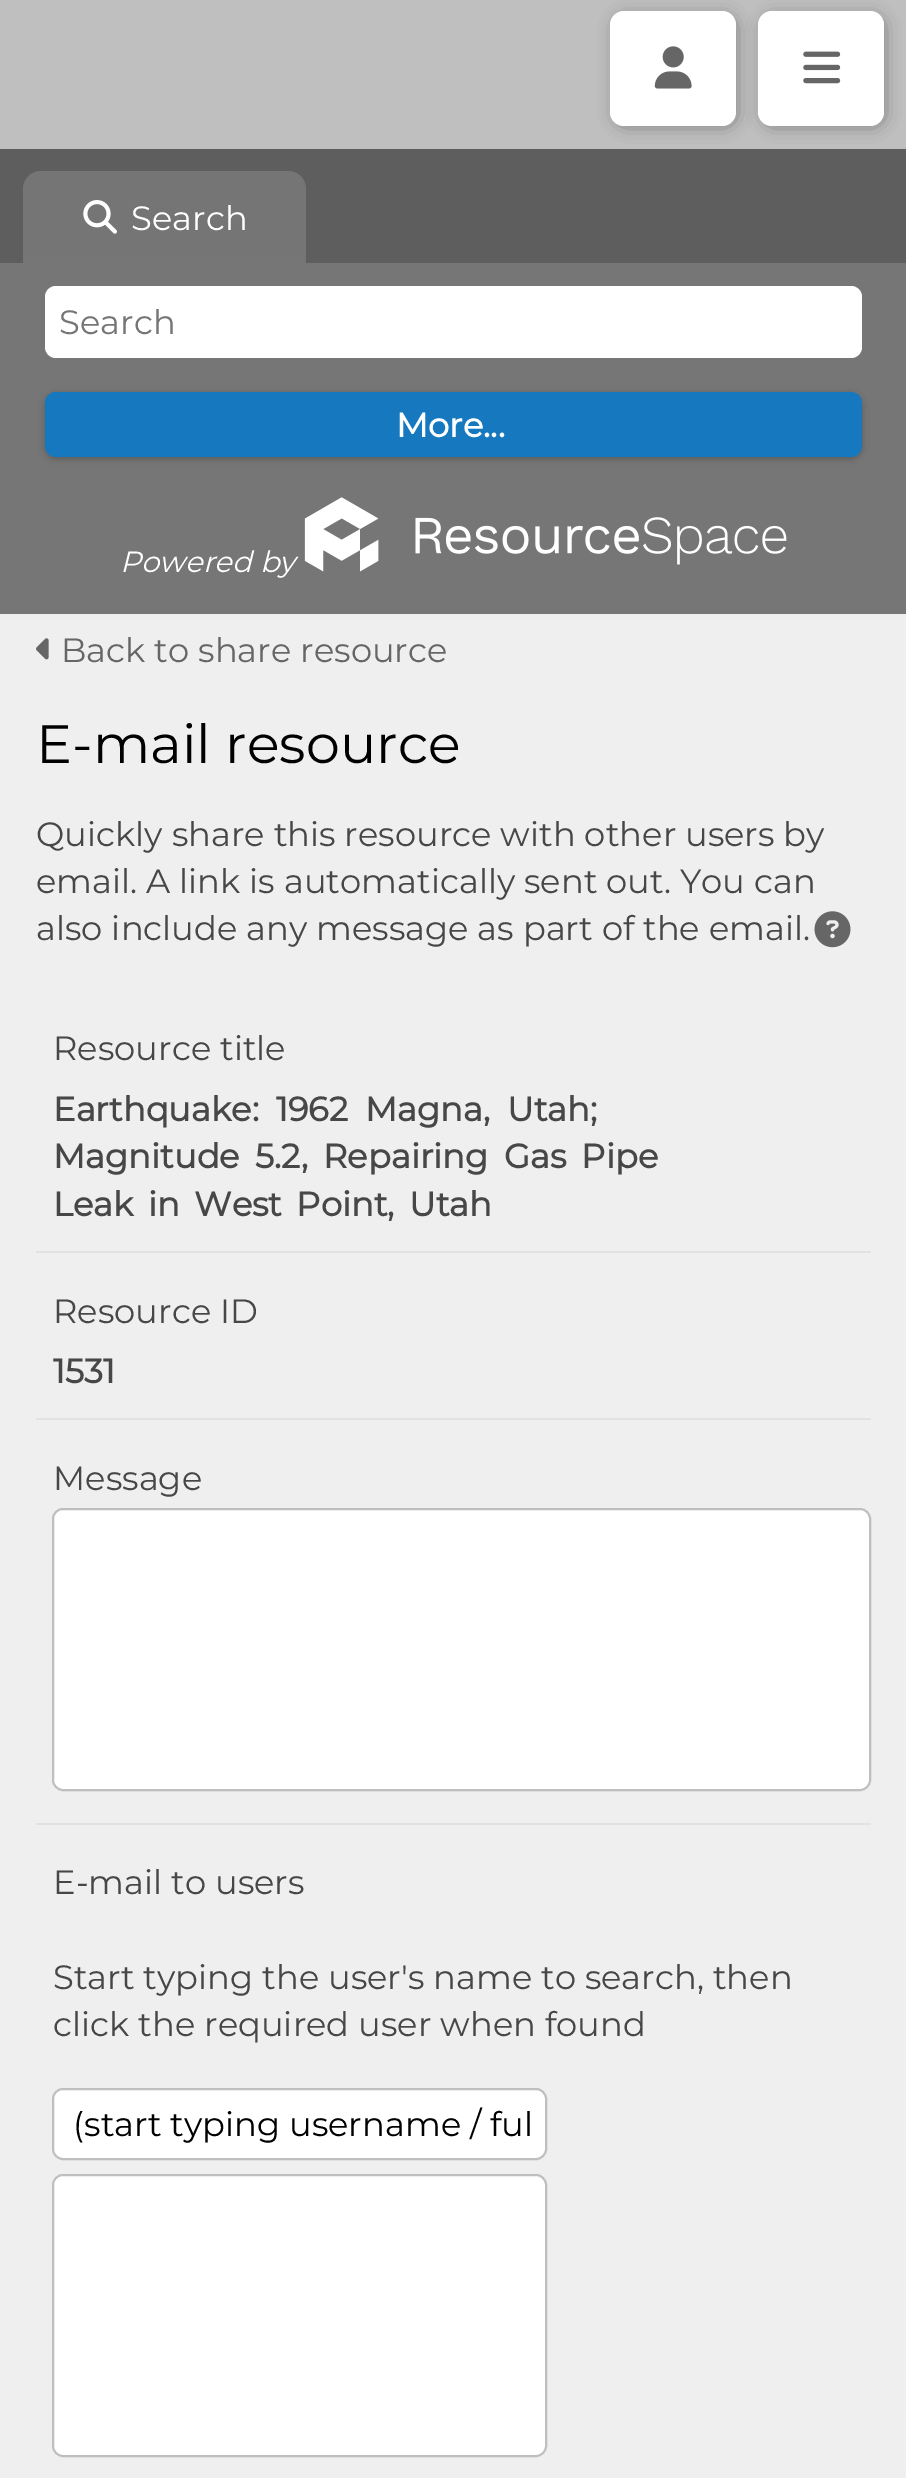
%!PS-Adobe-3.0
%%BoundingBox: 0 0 906 2478
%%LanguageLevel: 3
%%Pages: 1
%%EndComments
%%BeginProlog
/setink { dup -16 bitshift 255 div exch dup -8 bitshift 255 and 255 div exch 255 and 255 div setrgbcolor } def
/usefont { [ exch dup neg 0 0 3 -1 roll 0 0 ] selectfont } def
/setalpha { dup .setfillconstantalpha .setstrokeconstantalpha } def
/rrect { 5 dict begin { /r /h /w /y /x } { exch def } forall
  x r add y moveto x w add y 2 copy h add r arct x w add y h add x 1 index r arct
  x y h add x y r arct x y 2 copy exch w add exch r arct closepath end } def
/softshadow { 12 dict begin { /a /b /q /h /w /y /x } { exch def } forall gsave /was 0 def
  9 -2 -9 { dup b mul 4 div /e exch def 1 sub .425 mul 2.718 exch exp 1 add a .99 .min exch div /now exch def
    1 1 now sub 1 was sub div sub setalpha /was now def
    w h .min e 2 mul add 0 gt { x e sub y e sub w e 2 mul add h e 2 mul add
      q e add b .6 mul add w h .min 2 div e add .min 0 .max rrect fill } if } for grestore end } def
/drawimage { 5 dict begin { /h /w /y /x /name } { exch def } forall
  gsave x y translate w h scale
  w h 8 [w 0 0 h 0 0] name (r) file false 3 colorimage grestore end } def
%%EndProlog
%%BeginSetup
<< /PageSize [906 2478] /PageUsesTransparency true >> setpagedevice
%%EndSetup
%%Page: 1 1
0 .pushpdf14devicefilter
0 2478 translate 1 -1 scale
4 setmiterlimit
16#EFEFEF setink
0 0 906 2478 rectfill
16#C0BFBF setink
0 0 906 149 rectfill
16#5E5E5E setink
0 149 906 114 rectfill
16#666666 setink
765 18 117 106 9 9 1 softshadow
16#FFFFFF setink
758 11 126 115 14 rrect fill
16#666666 setink
617 18 117 106 9 9 1 softshadow
16#FFFFFF setink
610 11 126 115 14 rrect fill
(img1.raw) 654 46 38 43 drawimage
(img2.raw) 803 51 38 33 drawimage
16#767676 setink
0 263 906 351 rectfill
16#757575 setink
41 171 moveto 288 171 lineto 298 171 306 179 306 189 curveto 306 263 lineto 23 263 lineto 23 189 lineto 23 179 31 171 41 171 curveto closepath fill
(img3.raw) 83 200 34 34 drawimage
/Montserrat-Regular 33.75 usefont
16#FFFFFF setink
131 230 moveto (Search) show
45 286 817 72 11 rrect fill
16#757575 setink
59 334 moveto (Search) show
16#000000 setink
45 394 817 65 11 3.5 0.25 softshadow
16#1679C0 setink
45 392 817 65 11 rrect fill
/Montserrat-Bold 33.75 usefont
16#FFFFFF setink
396 437 moveto (More...) show
/Montserrat-Italic 29.25 usefont
120 572 moveto (Powered by) show
(img4.raw) 304 497 483 75 drawimage
(img5.raw) 36 638 13 22 drawimage
/Montserrat-Regular 33.75 usefont
16#666666 setink
61 662 moveto (Back to share resource) show
/Montserrat-Regular 54 usefont
16#000000 setink
36 763 moveto (E-mail resource) show
/Montserrat-Regular 33.75 usefont
16#474747 setink
[
    [(Quickly share this resource with other users by) 36 846]
    [(email. A link is automatically sent out. You can) 36 893]
    [(also include any message as part of the email.) 36 940]
] { aload pop moveto show } forall
(img6.raw) 814 911 37 37 drawimage
16#E2E2E2 setink
36 1251 835 2 rectfill
16#474747 setink
53 1060 moveto (Resource title) show
/Montserrat-Bold 33.75 usefont
53 1121 moveto 8 0 32 (Earthquake: 1962 Magna, Utah;) widthshow
53 1168 moveto 6.5 0 32 (Magnitude 5.2, Repairing Gas Pipe) widthshow
53 1216 moveto 5.5 0 32 (Leak in West Point, Utah) widthshow
16#E2E2E2 setink
36 1418 835 2 rectfill
/Montserrat-Regular 33.75 usefont
16#474747 setink
53 1323 moveto (Resource ID) show
/Montserrat-Bold 33.75 usefont
53 1383 moveto (1531) show
16#E2E2E2 setink
36 1823 835 2 rectfill
/Montserrat-Regular 33.75 usefont
16#474747 setink
53 1490 moveto (Message) show
16#FFFFFF setink
52 1508 819 283 11 rrect fill
0.25 setalpha
16#000000 setink
2 setlinewidth
53 1509 817 281 10 rrect stroke
1 setalpha
16#474747 setink
[
    [(E-mail to users) 53 1894]
    [(Start typing the user's name to search, then) 53 1989]
    [(click the required user when found) 53 2036]
] { aload pop moveto show } forall
16#FFFFFF setink
52 2088 495 72 11 rrect fill
0.25 setalpha
16#000000 setink
53 2089 493 70 10 rrect stroke
1 setalpha
73 2136 moveto (\(start typing username / ful) show
16#FFFFFF setink
52 2174 495 283 11 rrect fill
0.25 setalpha
16#000000 setink
53 2175 493 281 10 rrect stroke
.poppdf14devicefilter showpage
%%EOF
